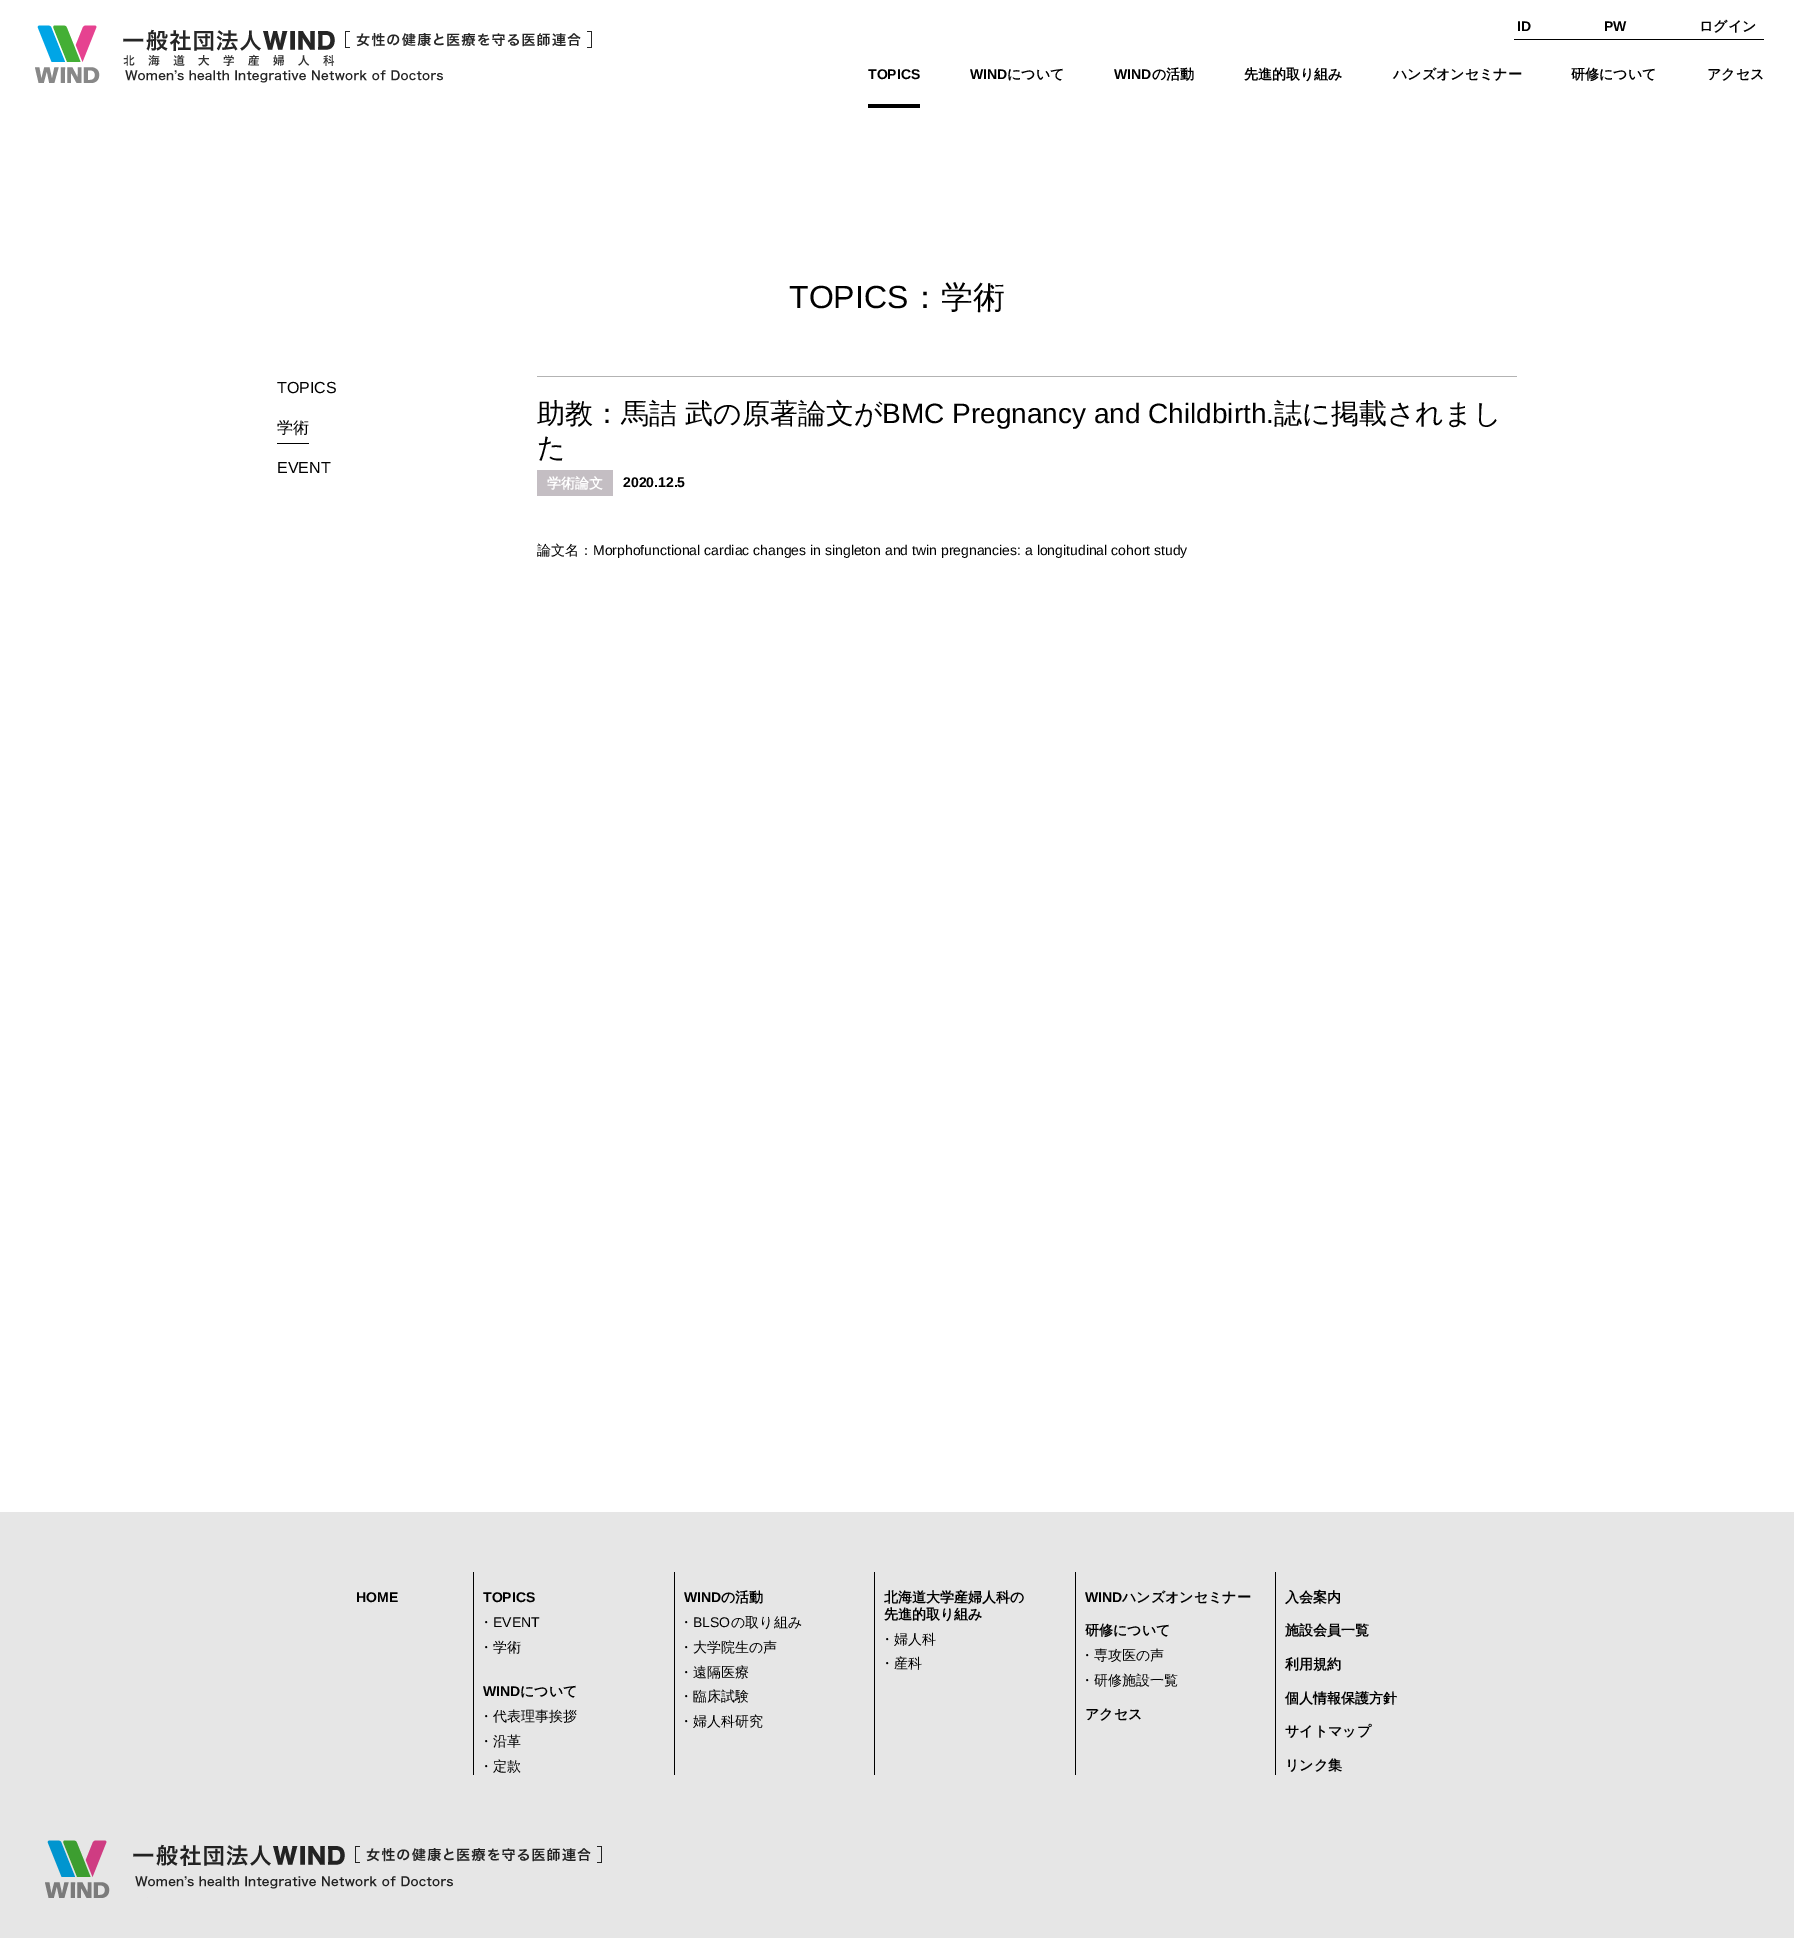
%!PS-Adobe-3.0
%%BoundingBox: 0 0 1794 1938
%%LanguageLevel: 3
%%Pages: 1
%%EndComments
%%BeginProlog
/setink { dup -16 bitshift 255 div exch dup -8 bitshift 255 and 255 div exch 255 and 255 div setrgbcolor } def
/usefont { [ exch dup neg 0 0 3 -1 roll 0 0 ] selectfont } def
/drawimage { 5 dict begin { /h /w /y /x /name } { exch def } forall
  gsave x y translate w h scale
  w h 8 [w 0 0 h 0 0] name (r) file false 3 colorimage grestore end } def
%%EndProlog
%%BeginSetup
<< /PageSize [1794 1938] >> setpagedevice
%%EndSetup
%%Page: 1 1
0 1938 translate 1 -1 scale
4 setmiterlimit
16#FFFFFF setink
0 0 1794 1938 rectfill
(img1.raw) 35 25 557 58 drawimage
16#000000 setink
1514 39 250 1 rectfill
/LiberationSans-Bold 14 usefont
1517 31 moveto (ID) show
1604 31 moveto (PW) show
/WenQuanYiZenHei-Bold 14 usefont
1699 31 moveto (ログイン) show
/LiberationSans-Bold 14 usefont
868 79 moveto (TOPICS) show
868 104 52 4 rectfill
970 79 moveto (WIND) show
/WenQuanYiZenHei-Bold 14 usefont
1007 79 moveto (について) show
/LiberationSans-Bold 14 usefont
1114 79 moveto (WIND) show
/WenQuanYiZenHei-Bold 14 usefont
[
    [(の活動) 1152 79]
    [(先進的取り組み) 1244 79]
    [(ハンズオンセミナー) 1393 79]
    [(研修について) 1571 79]
    [(アクセス) 1707 79]
] { aload pop moveto show } forall
/LiberationSans-Regular 32 usefont
789 308 moveto (TOPICS) show
/WenQuanYiZenHei-Medium 32 usefont
909 308 moveto (：学術) show
/LiberationSans-Regular 16 usefont
277 393 moveto (TOPICS) show
/WenQuanYiZenHei-Medium 16 usefont
277 433 moveto (学術) show
277 443 32 1 rectfill
/LiberationSans-Regular 16 usefont
277 473 moveto (EVENT) show
16#B3B3B3 setink
537 376 980 1 rectfill
/WenQuanYiZenHei-Medium 28 usefont
16#000000 setink
537 423 moveto (助教：馬詰) show
685 423 moveto (武の原著論文が) show
/LiberationSans-Regular 28 usefont
882 423 moveto (BMC Pregnancy and Childbirth.) show
/WenQuanYiZenHei-Medium 28 usefont
1274 423 moveto (誌に掲載されまし) show
537 457 moveto (た) show
16#C4BEC3 setink
537 470 76 26 rectfill
/WenQuanYiZenHei-Bold 14 usefont
16#FFFFFF setink
547 488 moveto (学術論文) show
/LiberationSans-Bold 14 usefont
16#000000 setink
623 487 moveto (2020.12.5) show
/WenQuanYiZenHei-Medium 14 usefont
537 555 moveto (論文名：) show
/LiberationSans-Regular 14 usefont
593 555 moveto (Morphofunctional cardiac changes in singleton and twin pregnancies: a longitudinal cohort study) show
16#E6E6E6 setink
0 1512 1794 426 rectfill
/LiberationSans-Bold 14 usefont
16#000000 setink
356 1602 moveto (HOME) show
473 1572 1 203 rectfill
483 1602 moveto (TOPICS) show
/WenQuanYiZenHei-Medium 14 usefont
479 1627 moveto (・) show
/LiberationSans-Regular 14 usefont
493 1627 moveto (EVENT) show
/WenQuanYiZenHei-Medium 14 usefont
479 1652 moveto (・) show
493 1652 moveto (学術) show
/LiberationSans-Bold 14 usefont
483 1696 moveto (WIND) show
/WenQuanYiZenHei-Bold 14 usefont
520 1696 moveto (について) show
/WenQuanYiZenHei-Medium 14 usefont
[
    [(・) 479 1721]
    [(代表理事挨拶) 493 1721]
    [(・) 479 1746]
    [(沿革) 493 1746]
    [(・) 479 1771]
    [(定款) 493 1771]
] { aload pop moveto show } forall
674 1572 1 203 rectfill
/LiberationSans-Bold 14 usefont
684 1602 moveto (WIND) show
/WenQuanYiZenHei-Bold 14 usefont
721 1602 moveto (の活動) show
/WenQuanYiZenHei-Medium 14 usefont
679 1627 moveto (・) show
/LiberationSans-Regular 14 usefont
693 1627 moveto (BLSO) show
/WenQuanYiZenHei-Medium 14 usefont
[
    [(の取り組み) 731 1627]
    [(・) 679 1652]
    [(大学院生の声) 693 1652]
    [(・) 679 1677]
    [(遠隔医療) 693 1677]
    [(・) 679 1701]
    [(臨床試験) 693 1701]
    [(・) 679 1726]
    [(婦人科研究) 693 1726]
] { aload pop moveto show } forall
874 1572 1 203 rectfill
/WenQuanYiZenHei-Bold 14 usefont
884 1602 moveto (北海道大学産婦人科の) show
884 1619 moveto (先進的取り組み) show
/WenQuanYiZenHei-Medium 14 usefont
[
    [(・) 880 1644]
    [(婦人科) 894 1644]
    [(・) 880 1668]
    [(産科) 894 1668]
] { aload pop moveto show } forall
1075 1572 1 203 rectfill
/LiberationSans-Bold 14 usefont
1085 1602 moveto (WIND) show
/WenQuanYiZenHei-Bold 14 usefont
1122 1602 moveto (ハンズオンセミナー) show
1085 1635 moveto (研修について) show
/WenQuanYiZenHei-Medium 14 usefont
[
    [(・) 1080 1660]
    [(専攻医の声) 1094 1660]
    [(・) 1080 1685]
    [(研修施設一覧) 1094 1685]
] { aload pop moveto show } forall
/WenQuanYiZenHei-Bold 14 usefont
1085 1719 moveto (アクセス) show
1275 1572 1 203 rectfill
[
    [(入会案内) 1285 1602]
    [(施設会員一覧) 1285 1635]
    [(利用規約) 1285 1669]
    [(個人情報保護方針) 1285 1703]
    [(サイトマップ) 1285 1736]
    [(リンク集) 1285 1770]
] { aload pop moveto show } forall
(img2.raw) 45 1840 557 58 drawimage
showpage
%%EOF
